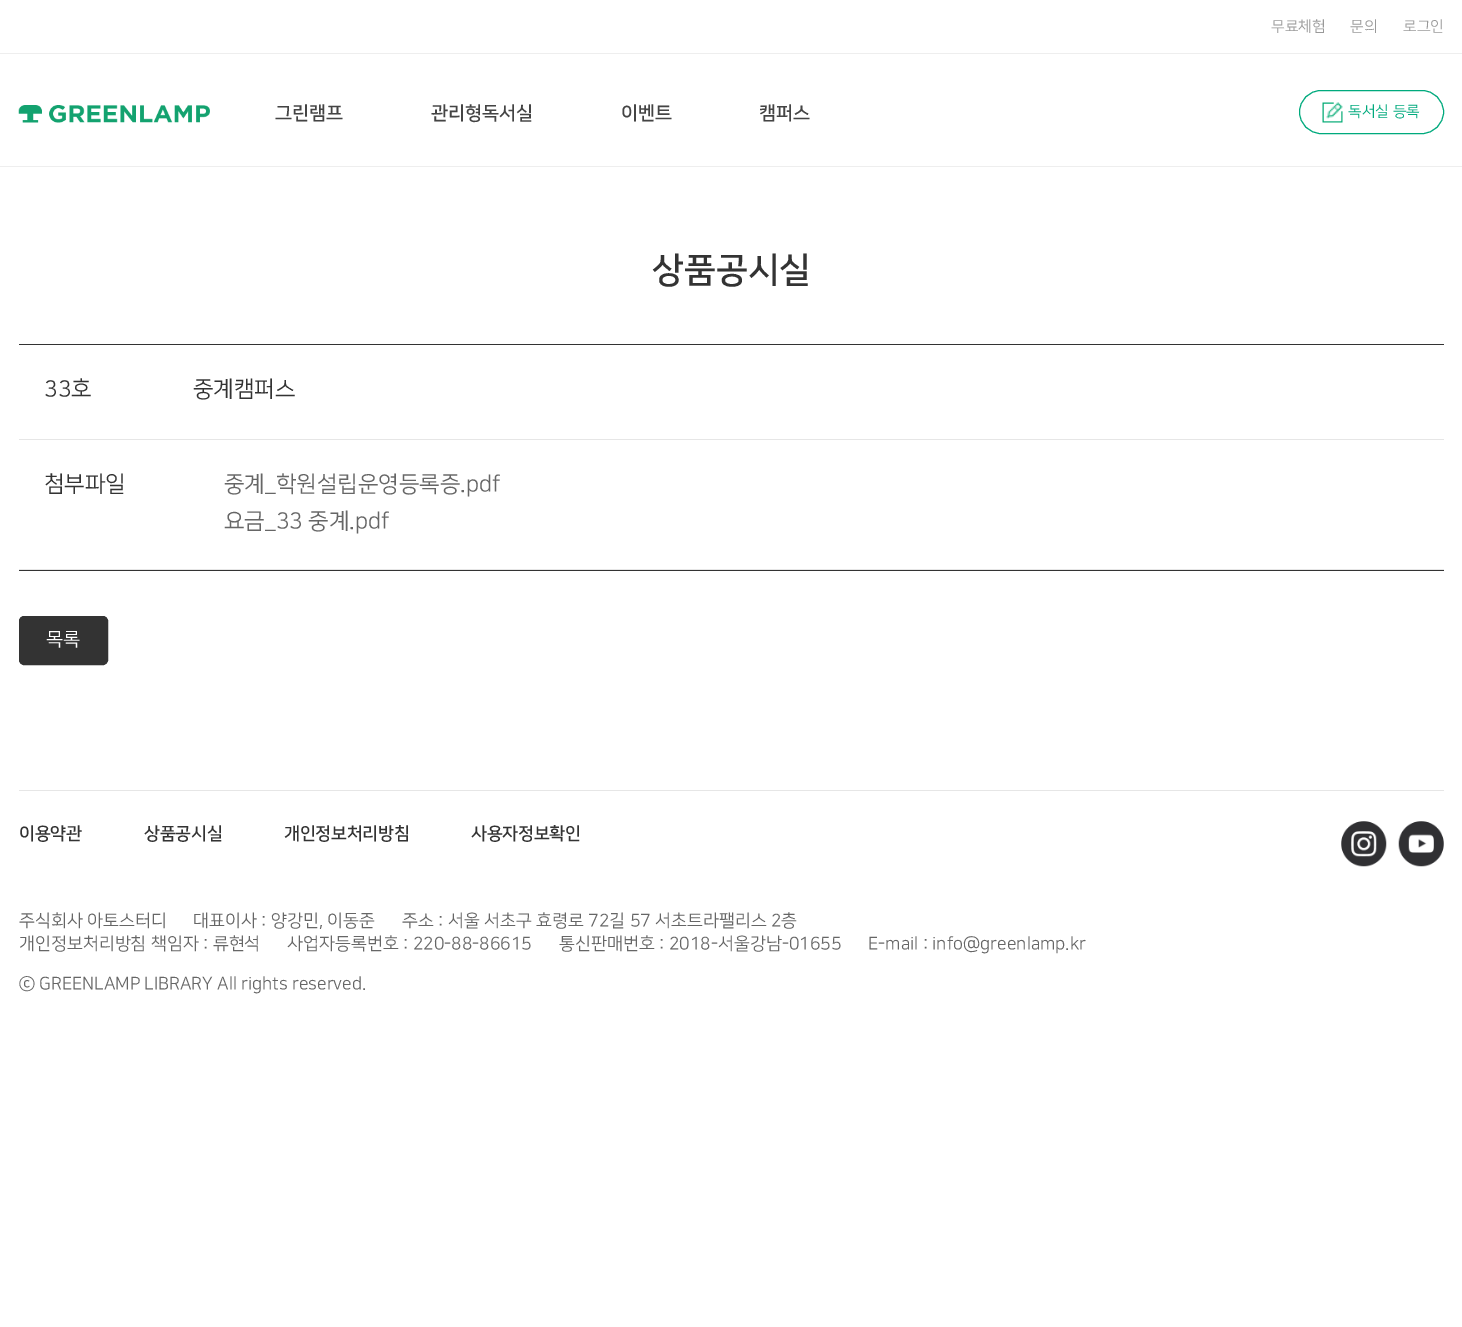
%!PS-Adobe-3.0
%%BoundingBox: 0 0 1462 1327
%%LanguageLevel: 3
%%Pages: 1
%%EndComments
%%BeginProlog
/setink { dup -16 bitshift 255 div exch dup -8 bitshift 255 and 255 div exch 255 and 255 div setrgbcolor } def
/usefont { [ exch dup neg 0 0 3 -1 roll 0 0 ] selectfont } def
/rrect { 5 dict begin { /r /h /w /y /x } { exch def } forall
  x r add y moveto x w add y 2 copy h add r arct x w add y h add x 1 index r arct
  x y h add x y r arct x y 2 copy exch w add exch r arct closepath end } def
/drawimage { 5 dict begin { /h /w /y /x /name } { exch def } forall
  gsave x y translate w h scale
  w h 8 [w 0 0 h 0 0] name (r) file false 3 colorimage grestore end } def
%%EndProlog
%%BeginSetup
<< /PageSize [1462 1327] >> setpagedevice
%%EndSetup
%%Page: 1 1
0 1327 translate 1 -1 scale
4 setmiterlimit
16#FFFFFF setink
0 0 1462 1327 rectfill
/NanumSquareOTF-Regular 15 usefont
16#999999 setink
[
    [(무료체험) 1271 31]
    [(문의) 1350 31]
    [(로그인) 1403 31]
] { aload pop moveto show } forall
16#EEEEEE setink
0 53 1462 1 rectfill
0 166 1462 1 rectfill
(img1.raw) 18 105 192 18 drawimage
/NanumSquareOTF-Bold 18.75 usefont
16#444444 setink
[
    [(그린램프) 275 119]
    [(관리형독서실) 431 119]
    [(이벤트) 621 119]
    [(캠퍼스) 759 119]
] { aload pop moveto show } forall
16#00AA7D setink
1299.5 90.5 144 43 21.5 rrect stroke
(img2.raw) 1322 102 21 21 drawimage
/NanumSquareOTF-Regular 15 usefont
1348 116 moveto (독서실 등록) show
/NanumSquareOTF-Bold 35 usefont
16#333333 setink
652 281 moveto (상품공시실) show
[
    [19 344 1425 1 16#333333]
    [19 570 1425 1 16#333333]
    [19 439 1425 1 16#E6E6E6]
] { aload pop setink rectfill } forall
/NanumSquareOTF-Regular 22.5 usefont
16#333333 setink
44 396 moveto (33호                  중계캠퍼스) show
16#E6E6E6 setink
19 569 1425 1 rectfill
16#333333 setink
44 491 moveto (첨부파일) show
16#666666 setink
224 491 moveto (중계_학원설립운영등록증.pdf) show
224 528 moveto (요금_33 중계.pdf) show
16#333333 setink
19.5 616.5 88 48 4.5 rrect gsave fill grestore
stroke
/NanumSquareOTF-Regular 18.75 usefont
16#FFFFFF setink
46 645 moveto (목록) show
16#E6E6E6 setink
19 790 1425 1 rectfill
/NanumSquareOTF-Bold 17.5 usefont
16#333333 setink
19 839 moveto -0.25 0 (이용약관) ashow
144 839 moveto -0.25 0 (상품공시실) ashow
284 839 moveto -0.25 0 (개인정보처리방침) ashow
471 839 moveto -0.25 0 (사용자정보확인) ashow
(img3.raw) 1341 821 46 46 drawimage
(img4.raw) 1398 821 46 46 drawimage
/NanumSquareOTF-Regular 17.5 usefont
16#666666 setink
[
    [(주식회사 아토스터디) 19 926]
    [(대표이사 : 양강민, 이동준) 193 926]
    [(주소 : 서울 서초구 효령로 72길 57 서초트라팰리스 2층) 402 926]
    [(개인정보처리방침 책임자 : 류현석) 19 949]
    [(사업자등록번호 : 220-88-86615) 287 949]
    [(통신판매번호 : 2018-서울강남-01655) 559 949]
    [(E-mail : info@greenlamp.kr) 868 949]
    [(ⓒ GREENLAMP LIBRARY All rights reserved.) 19 989]
] { aload pop moveto show } forall
showpage
%%EOF
